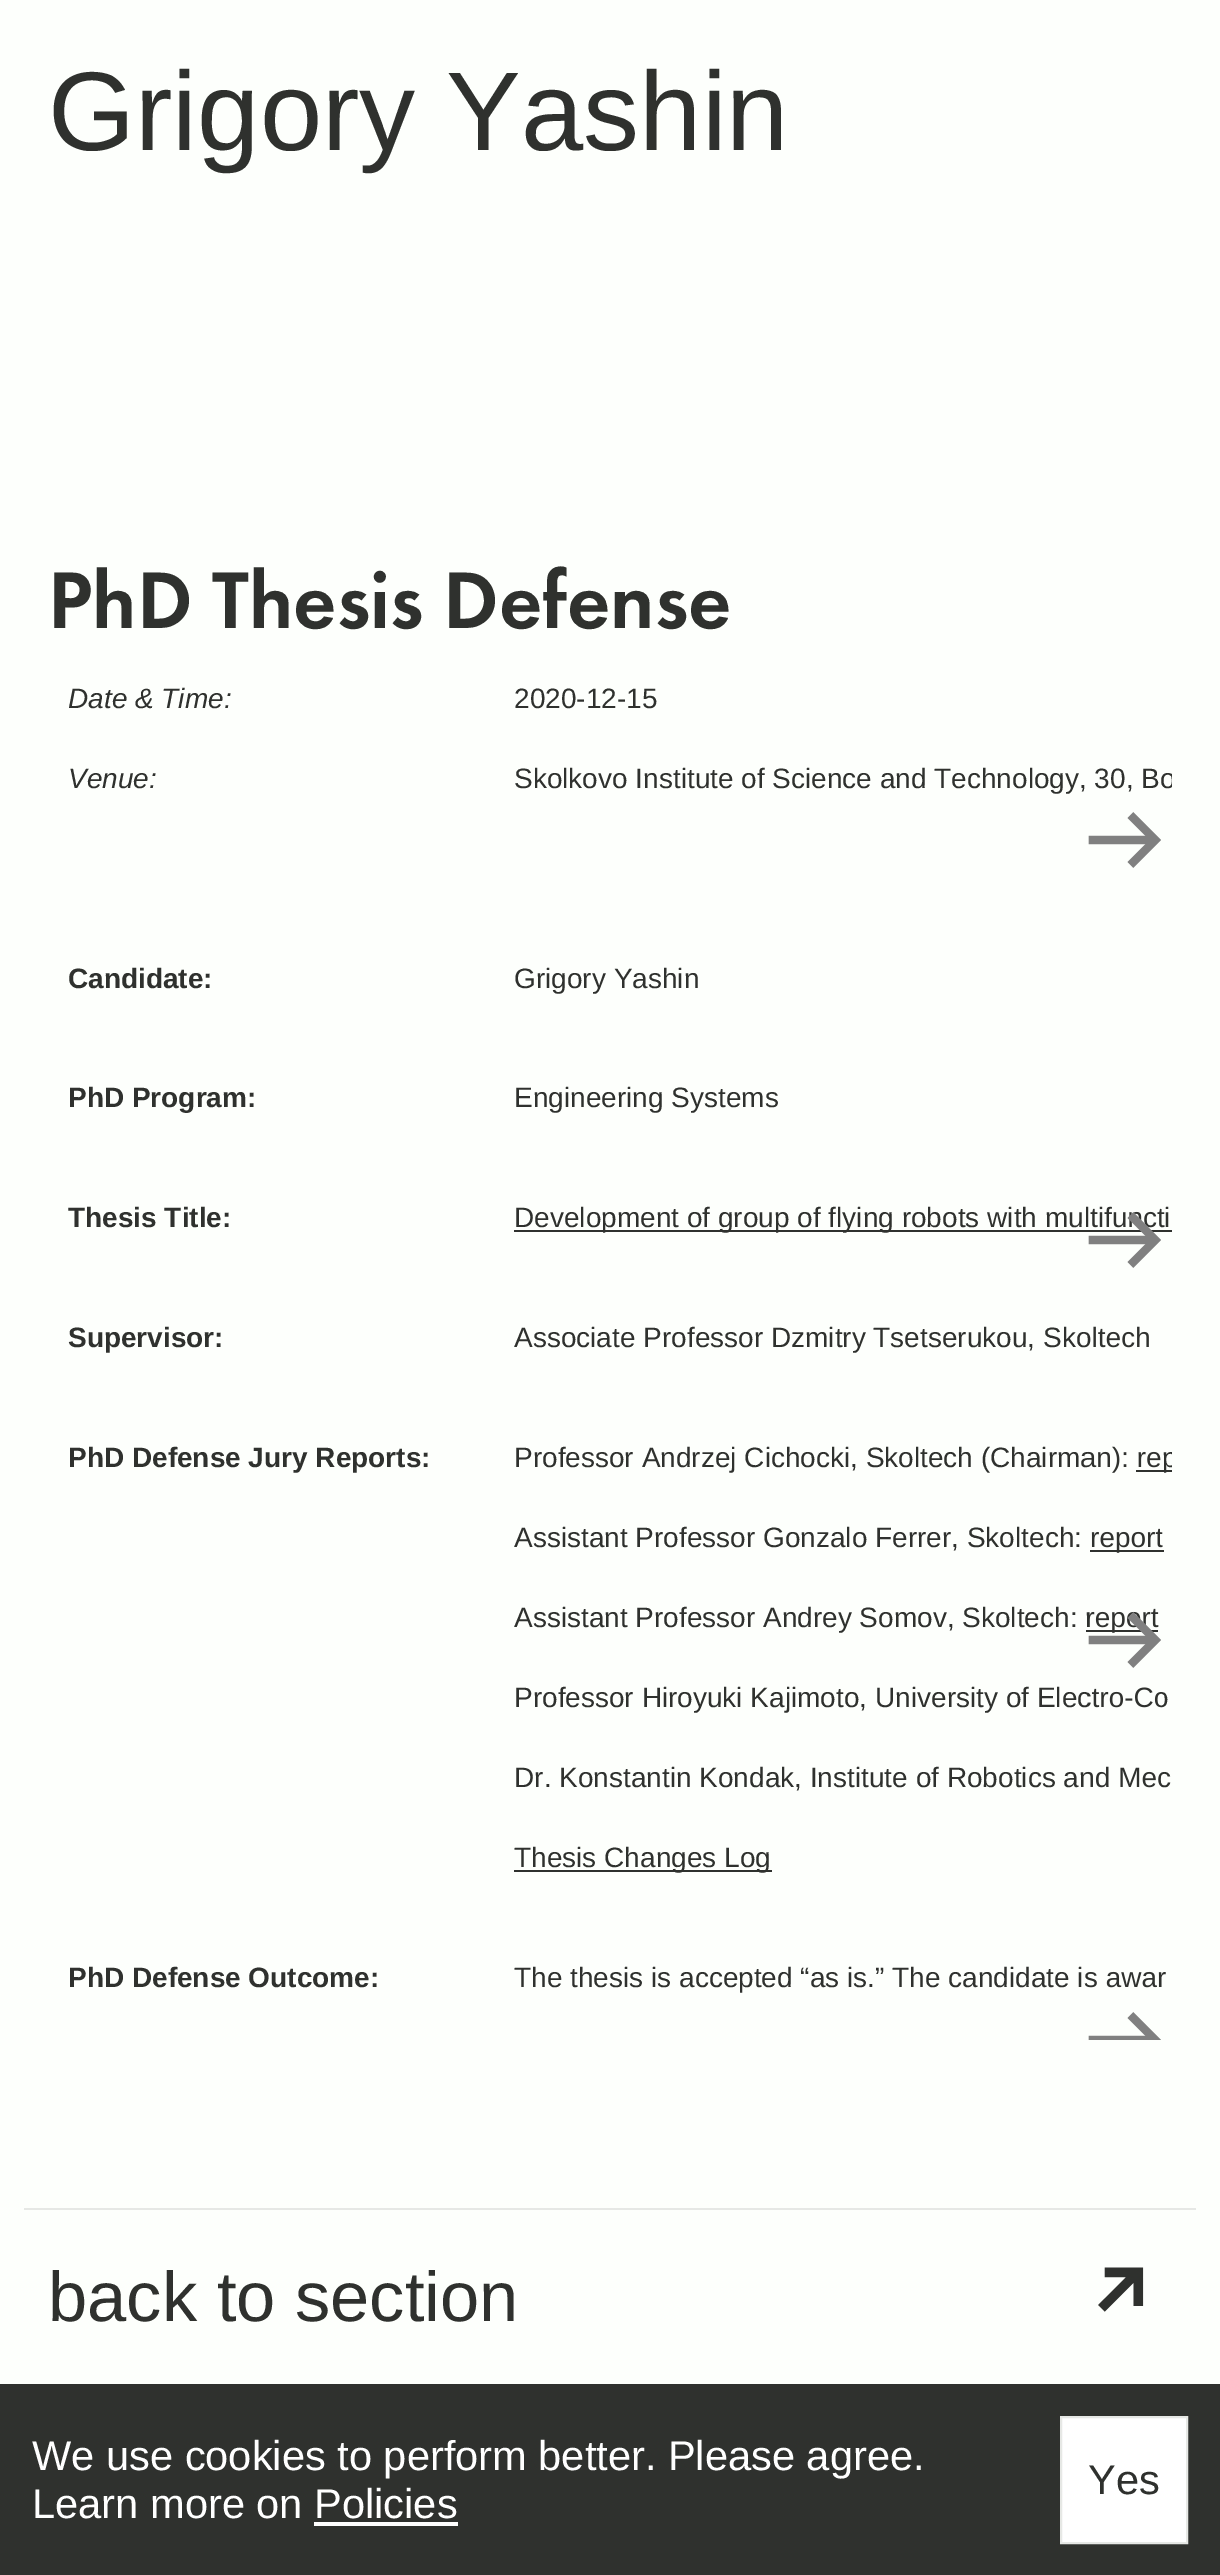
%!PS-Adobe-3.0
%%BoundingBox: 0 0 1220 2575
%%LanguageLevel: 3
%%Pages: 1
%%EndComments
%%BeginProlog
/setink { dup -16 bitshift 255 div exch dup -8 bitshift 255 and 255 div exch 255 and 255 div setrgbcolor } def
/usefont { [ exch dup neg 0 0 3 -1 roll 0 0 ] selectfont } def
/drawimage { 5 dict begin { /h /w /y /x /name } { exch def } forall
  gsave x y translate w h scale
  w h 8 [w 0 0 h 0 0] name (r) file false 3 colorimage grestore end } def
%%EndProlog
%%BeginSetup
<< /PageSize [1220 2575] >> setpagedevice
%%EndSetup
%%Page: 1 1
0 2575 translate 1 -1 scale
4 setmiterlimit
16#FDFFFC setink
0 0 1220 2575 rectfill
/LiberationSans-Regular 112 usefont
16#2F312E setink
48 150 moveto (Grigory Yashin) show
/FuturaPT-Medium 83.25 usefont
48 628 moveto (PhD Thesis Defense) show
/LiberationSans-Italic 28 usefont
68 708 moveto (Date & Time:) show
68 788 moveto (Venue:) show
/LiberationSans-Regular 28 usefont
514 708 moveto (2020-12-15) show
gsave
48 640 1124 1400 rectclip
514 788 moveto (Skolkovo Institute of Science and Technology, 30, Bo) show
grestore
/LiberationSans-Bold 28 usefont
68 988 moveto (Candidate:) show
/LiberationSans-Regular 28 usefont
514 988 moveto (Grigory Yashin) show
/LiberationSans-Bold 28 usefont
68 1107 moveto (PhD Program:) show
/LiberationSans-Regular 28 usefont
514 1107 moveto (Engineering Systems) show
/LiberationSans-Bold 28 usefont
68 1227 moveto (Thesis Title:) show
514 1230 658 2 rectfill
/LiberationSans-Regular 28 usefont
514 1227 moveto (Development of group of flying robots with multifuncti) show
/LiberationSans-Bold 28 usefont
68 1347 moveto (Supervisor:) show
/LiberationSans-Regular 28 usefont
514 1347 moveto (Associate Professor Dzmitry Tsetserukou, Skoltech) show
/LiberationSans-Bold 28 usefont
68 1467 moveto (PhD Defense Jury Reports:) show
/LiberationSans-Regular 28 usefont
514 1467 moveto (Professor Andrzej Cichocki, Skoltech \(Chairman\):) show
1136 1470 36 2 rectfill
gsave
48 640 1124 1400 rectclip
1137 1467 moveto (rep) show
grestore
514 1547 moveto (Assistant Professor Gonzalo Ferrer, Skoltech:) show
1090 1550 74 2 rectfill
1090 1547 moveto (report) show
514 1627 moveto (Assistant Professor Andrey Somov, Skoltech:) show
1086 1630 72 2 rectfill
[
    [(report) 1085 1627]
    [(Professor Hiroyuki Kajimoto, University of Electro-Co) 514 1707]
    [(Dr. Konstantin Kondak, Institute of Robotics and Mec) 514 1787]
] { aload pop moveto show } forall
514 1870 258 2 rectfill
514 1867 moveto (Thesis Changes Log) show
/LiberationSans-Bold 28 usefont
68 1987 moveto (PhD Defense Outcome:) show
/LiberationSans-Regular 28 usefont
514 1987 moveto (The thesis is accepted “as is.” The candidate is awar) show
(img1.raw) 1088 812 73 1228 drawimage
16#E6E8E5 setink
24 2208 1172 2 rectfill
/LiberationSans-Regular 70.5 usefont
16#2F312E setink
48 2321 moveto (back to section) show
(img2.raw) 1098 2267 46 45 drawimage
0 2384 1220 191 rectfill
/LiberationSans-Regular 41.6 usefont
16#FFFFFF setink
32 2470 moveto (We use cookies to perform better. Please agree.) show
32 2518 moveto (Learn more on Policies) show
314 2522 144 4 rectfill
1061 2417 moveto 1187 2417 lineto 1187 2543 lineto 1061 2543 lineto closepath gsave fill grestore
16#E6E8E5 setink
2 setlinewidth
stroke
16#2F312E setink
1088 2494 moveto (Yes) show
showpage
%%EOF
